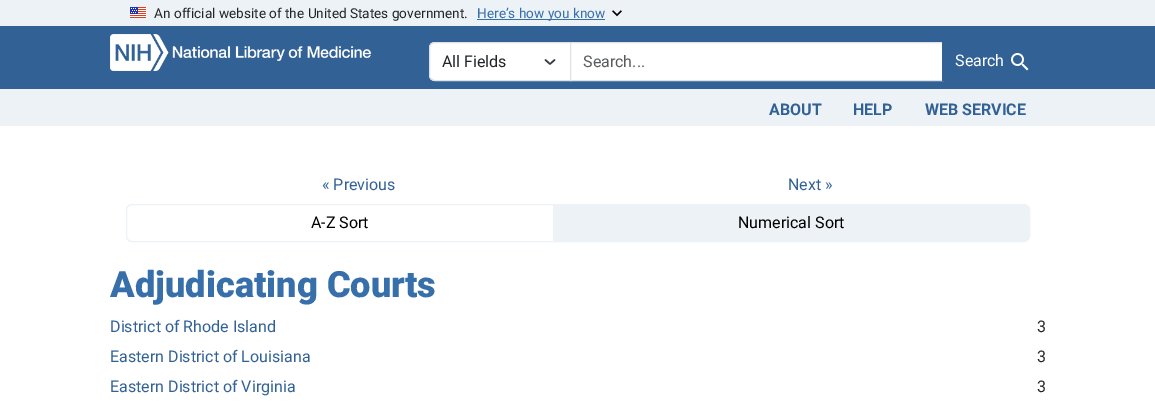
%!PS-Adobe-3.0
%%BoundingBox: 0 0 1155 411
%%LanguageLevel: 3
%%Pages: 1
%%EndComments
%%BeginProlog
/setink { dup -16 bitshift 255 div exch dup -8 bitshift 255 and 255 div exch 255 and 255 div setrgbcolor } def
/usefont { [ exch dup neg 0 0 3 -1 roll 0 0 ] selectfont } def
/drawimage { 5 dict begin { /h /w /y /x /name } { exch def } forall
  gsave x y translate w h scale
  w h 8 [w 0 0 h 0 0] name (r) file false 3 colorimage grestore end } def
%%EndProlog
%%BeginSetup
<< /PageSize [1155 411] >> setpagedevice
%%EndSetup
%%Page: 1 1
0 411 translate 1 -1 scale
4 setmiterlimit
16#FFFFFF setink
0 0 1155 411 rectfill
16#EDF2F7 setink
0 0 1155 26 rectfill
(img1.raw) 130 7 16 11 drawimage
/Roboto-Regular 13.6 usefont
16#212529 setink
154 18 moveto (An official website of the United States government.) show
16#376FAA setink
477 19 128 1 rectfill
477 18 moveto (Here’s how you know) show
(img2.raw) 612 10 10 7 drawimage
16#326295 setink
0 26 1155 63 rectfill
(img3.raw) 110 34 262 37 drawimage
16#FFFFFF setink
435 42 moveto 571 42 lineto 571 81 lineto 435 81 lineto 431.5 81 429 78.5 429 75 curveto 429 48 lineto 429 44.5 431.5 42 435 42 curveto closepath fill
16#343A40 setink
1.5 setlinewidth
1 setlinecap
1 setlinejoin
545.5 60 moveto 550 64 lineto 554.5 60 lineto stroke
16#DEE2E6 setink
1 setlinewidth
0 setlinecap
0 setlinejoin
435 42.5 moveto 570.5 42.5 lineto 570.5 80.5 lineto 435 80.5 lineto 432 80.5 429.5 78 429.5 75 curveto 429.5 48 lineto 429.5 45 432 42.5 435 42.5 curveto closepath stroke
/Roboto-Regular 16 usefont
16#212529 setink
442 67 moveto (All Fields) show
16#FFFFFF setink
570.5 42.5 moveto 942.5 42.5 lineto 942.5 80.5 lineto 570.5 80.5 lineto closepath gsave fill grestore
16#DEE2E6 setink
stroke
16#595C5F setink
583 67 moveto (Search...) show
16#326295 setink
942 42 moveto 1039 42 lineto 1042.5 42 1045 44.5 1045 48 curveto 1045 75 lineto 1045 78.5 1042.5 81 1039 81 curveto 942 81 lineto closepath fill
16#FFFFFF setink
955 66 moveto (Search) show
(img4.raw) 1011 53 18 18 drawimage
16#EDF2F7 setink
0 89 1155 37 rectfill
/Roboto-Bold 16 usefont
16#326295 setink
[
    [(ABOUT) 769 115]
    [(HELP) 853 115]
    [(WEB SERVICE) 925 115]
] { aload pop moveto show } forall
/Roboto-Regular 16 usefont
322 190 moveto (« Previous) show
788 190 moveto (Next ») show
16#EDF2F7 setink
132 204.5 moveto 553.5 204.5 lineto 553.5 241.5 lineto 132 241.5 lineto 129 241.5 126.5 239 126.5 236 curveto 126.5 210 lineto 126.5 207 129 204.5 132 204.5 curveto closepath stroke
16#000000 setink
311 228 moveto (A-Z Sort) show
16#EDF2F7 setink
553.5 204.5 moveto 1024 204.5 lineto 1027 204.5 1029.5 207 1029.5 210 curveto 1029.5 236 lineto 1029.5 239 1027 241.5 1024 241.5 curveto 553.5 241.5 lineto closepath gsave fill grestore
stroke
16#000000 setink
738 228 moveto (Numerical Sort) show
/Roboto-Black 36.25 usefont
16#376FAA setink
110 297 moveto (Adjudicating Courts) show
/Roboto-Regular 16 usefont
16#326295 setink
110 332 moveto (District of Rhode Island) show
16#212529 setink
1037 332 moveto (3) show
16#326295 setink
110 362 moveto (Eastern District of Louisiana) show
16#212529 setink
1037 362 moveto (3) show
16#326295 setink
110 392 moveto (Eastern District of Virginia) show
16#212529 setink
1037 392 moveto (3) show
showpage
%%EOF
